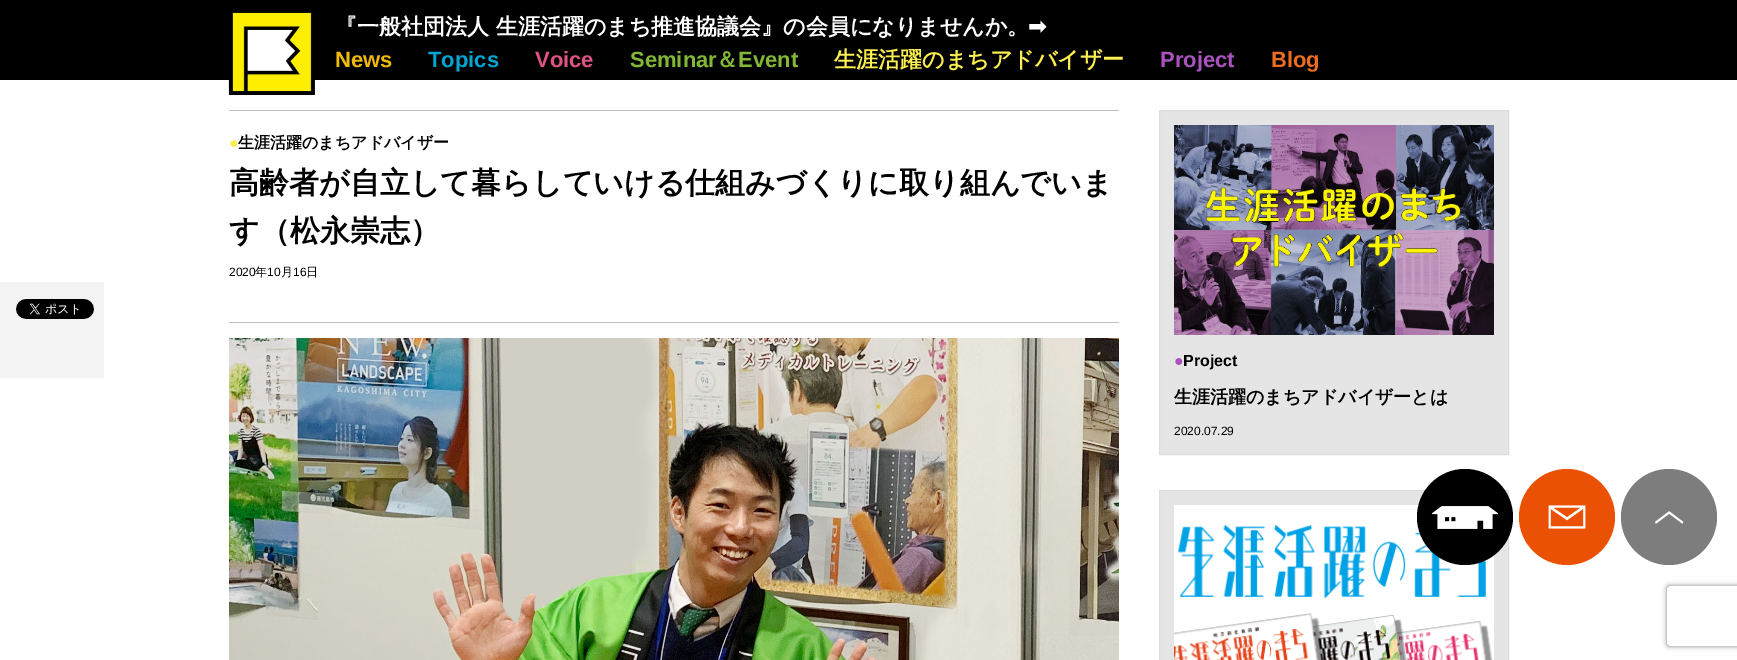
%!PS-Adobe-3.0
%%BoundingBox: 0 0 1737 660
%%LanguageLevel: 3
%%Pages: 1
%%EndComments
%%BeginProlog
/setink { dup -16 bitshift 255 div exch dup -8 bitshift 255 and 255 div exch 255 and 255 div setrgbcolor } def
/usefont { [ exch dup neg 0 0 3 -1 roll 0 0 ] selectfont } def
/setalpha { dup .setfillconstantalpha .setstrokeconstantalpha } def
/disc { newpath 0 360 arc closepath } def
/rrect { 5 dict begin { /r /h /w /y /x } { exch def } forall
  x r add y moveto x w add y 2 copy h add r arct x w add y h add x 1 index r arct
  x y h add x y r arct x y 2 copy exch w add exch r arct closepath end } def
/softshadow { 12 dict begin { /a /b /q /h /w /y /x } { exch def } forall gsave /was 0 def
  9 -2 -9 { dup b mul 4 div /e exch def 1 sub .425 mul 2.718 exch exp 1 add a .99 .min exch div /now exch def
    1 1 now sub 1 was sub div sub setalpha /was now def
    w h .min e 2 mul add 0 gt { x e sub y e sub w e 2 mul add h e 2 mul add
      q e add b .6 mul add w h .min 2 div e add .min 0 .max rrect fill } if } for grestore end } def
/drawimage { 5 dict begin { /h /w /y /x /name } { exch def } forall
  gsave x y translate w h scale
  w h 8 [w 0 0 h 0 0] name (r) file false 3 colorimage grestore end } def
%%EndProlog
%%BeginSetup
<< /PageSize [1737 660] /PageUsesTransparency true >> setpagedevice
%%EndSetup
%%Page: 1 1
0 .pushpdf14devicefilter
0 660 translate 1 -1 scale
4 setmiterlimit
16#FFFFFF setink
0 0 1737 660 rectfill
16#000000 setink
0 0 1737 80 rectfill
(img1.raw) 228 12 87 83 drawimage
/WenQuanYiZenHei-Bold 22 usefont
16#FFFFFF setink
335 34 moveto (『一般社団法人 生涯活躍のまち推進協議会』の会員になりませんか。) show
/DejaVuSans-Bold 22 usefont
1028 34 moveto (➡) show
/LiberationSans-Bold 22 usefont
16#F0BA0B setink
335 67 moveto (News) show
16#00A5D2 setink
428 67 moveto (Topics) show
16#DF5484 setink
535 67 moveto (Voice) show
16#82B834 setink
630 67 moveto (Seminar) show
/WenQuanYiZenHei-Bold 22 usefont
716 67 moveto (＆) show
/LiberationSans-Bold 22 usefont
738 67 moveto (Event) show
/WenQuanYiZenHei-Bold 22 usefont
16#FBEF4F setink
834 67 moveto (生涯活躍のまちアドバイザー) show
/LiberationSans-Bold 22 usefont
16#AA52BD setink
1160 67 moveto (Project) show
16#EB6D1F setink
1271 67 moveto (Blog) show
16#BFBFBF setink
229 110 890 1 rectfill
229 322 890 1 rectfill
/LiberationSans-Bold 16 usefont
16#FBEF4F setink
229 148 moveto (●) show
/WenQuanYiZenHei-Bold 16 usefont
16#000000 setink
238 148 moveto (生涯活躍のまちアドバイザー) show
/WenQuanYiZenHei-Bold 30 usefont
229 193 moveto (高齢者が自立して暮らしていける仕組みづくりに取り組んでいま) show
229 241 moveto (す（松永崇志）) show
/LiberationSans-Regular 12 usefont
229 276 moveto (2020) show
/WenQuanYiZenHei-Medium 12 usefont
255 276 moveto (年) show
/LiberationSans-Regular 12 usefont
267 276 moveto (10) show
/WenQuanYiZenHei-Medium 12 usefont
281 276 moveto (月) show
/LiberationSans-Regular 12 usefont
293 276 moveto (16) show
/WenQuanYiZenHei-Medium 12 usefont
306 276 moveto (日) show
(img2.raw) 229 338 890 322 drawimage
16#F3F3F3 setink
0 282 104 96 rectfill
(img3.raw) 16 299 78 20 drawimage
16#E5E5E5 setink
1159.5 110.5 moveto 1508.5 110.5 lineto 1508.5 454.5 lineto 1159.5 454.5 lineto closepath gsave fill grestore
16#DCDCDC setink
stroke
(img4.raw) 1174 125 320 210 drawimage
/LiberationSans-Bold 16 usefont
16#AA52BD setink
1174 366 moveto (●) show
16#000000 setink
1183 366 moveto (Project) show
/WenQuanYiZenHei-Bold 18 usefont
1174 403 moveto (生涯活躍のまちアドバイザーとは) show
/LiberationSans-Regular 12 usefont
1174 435 moveto (2020.07.29) show
16#E5E5E5 setink
1159.5 490.5 moveto 1508.5 490.5 lineto 1508.5 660.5 lineto 1159.5 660.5 lineto closepath gsave fill grestore
16#DCDCDC setink
stroke
(img5.raw) 1174 505 320 155 drawimage
16#000000 setink
1465 517 48 disc fill
(img6.raw) 1432 506 66 23 drawimage
16#EB5105 setink
1567 517 48 disc fill
(img7.raw) 1548 505 38 24 drawimage
16#7D7D7D setink
1669 517 48 disc fill
(img8.raw) 1655 511 29 13 drawimage
gsave
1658 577 moveto 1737 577 lineto 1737 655 lineto 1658 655 lineto closepath 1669 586 moveto 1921 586 lineto 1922 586 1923 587 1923 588 curveto 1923 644 lineto 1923 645 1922 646 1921 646 curveto 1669 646 lineto 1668 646 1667 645 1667 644 curveto 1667 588 lineto 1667 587 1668 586 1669 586 curveto closepath eoclip newpath
16#808080 setink
1667 586 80 60 2 2.5 1 softshadow
grestore
.poppdf14devicefilter showpage
%%EOF
